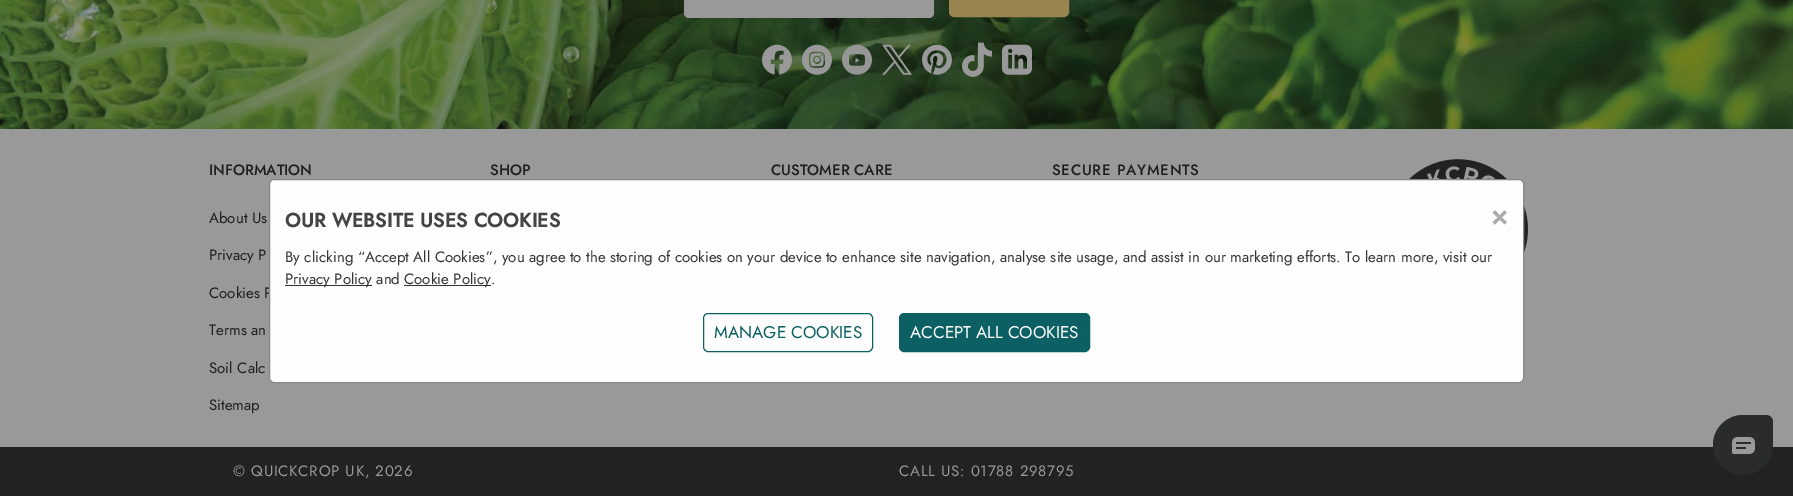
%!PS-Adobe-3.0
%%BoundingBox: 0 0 1793 496
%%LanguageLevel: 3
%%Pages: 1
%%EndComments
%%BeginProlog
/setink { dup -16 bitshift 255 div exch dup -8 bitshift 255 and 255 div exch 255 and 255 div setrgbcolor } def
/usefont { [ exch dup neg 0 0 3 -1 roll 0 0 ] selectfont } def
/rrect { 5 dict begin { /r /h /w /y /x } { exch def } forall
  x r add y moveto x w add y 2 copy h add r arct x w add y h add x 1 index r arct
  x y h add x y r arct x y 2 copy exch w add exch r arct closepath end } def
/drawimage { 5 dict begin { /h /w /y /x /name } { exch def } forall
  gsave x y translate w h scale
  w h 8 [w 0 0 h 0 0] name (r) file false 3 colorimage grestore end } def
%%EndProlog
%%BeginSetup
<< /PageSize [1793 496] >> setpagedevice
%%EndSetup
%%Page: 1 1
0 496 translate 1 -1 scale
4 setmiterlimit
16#999999 setink
0 0 1793 496 rectfill
(img8.raw) 0 0 1793 129 drawimage
684 -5 250 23 5 rrect fill
16#99844F setink
949.5 -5.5 119 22 4.5 rrect gsave fill grestore
stroke
(img1.raw) 762 44 30 31 drawimage
(img2.raw) 802 44 30 31 drawimage
(img3.raw) 842 44 30 31 drawimage
(img4.raw) 882 44 30 31 drawimage
(img5.raw) 922 44 30 31 drawimage
(img6.raw) 962 42 30 35 drawimage
(img7.raw) 1002 44 30 31 drawimage
/Jost-Medium 15 usefont
16#1F1F1F setink
209 175 moveto (INFORMATION) show
/Jost-Regular 15 usefont
[
    [(About Us) 209 223]
    [(Privacy P) 209 260]
    [(Cookies P) 209 298]
    [(Terms an) 209 335]
    [(Soil Calc) 209 373]
    [(Sitemap) 209 410]
] { aload pop moveto show } forall
/Jost-Medium 15 usefont
490 175 moveto (SHOP) show
771 175 moveto (CUSTOMER CARE) show
1052 175 moveto 0.75 0 (SECURE PAYMENTS) ashow
(img9.raw) 1409 159 119 94 drawimage
16#222222 setink
0 447 1793 49 rectfill
/Jost-Regular 15 usefont
16#999999 setink
233 476 moveto 0.75 0 (© QUICKCROP UK, 2026) ashow
899 476 moveto 0.75 0 (CALL US: 01788 298795) ashow
16#FEFEFE setink
269.5 179.5 1254 203 4.5 rrect gsave fill grestore
16#888888 setink
stroke
/Jost-Bold 19.5 usefont
16#444444 setink
285 227 moveto 0.25 0 (OUR WEBSITE USES COOKIES) ashow
/Jost-Bold 28 usefont
16#AAAAAA setink
1491 225 moveto (×) show
/Jost-Regular 15 usefont
16#333333 setink
285 262 moveto (By clicking “Accept All Cookies”, you agree to the storing of cookies on your device to enhance site navigation, analyse site usage, and assist in our marketing efforts. To learn more, visit our) show
285 285 87 1 rectfill
285 284 moveto (Privacy Policy and) show
404 285 87 1 rectfill
404 284 moveto (Cookie Policy.) show
16#0C6064 setink
703.5 313.5 169 38 4.5 rrect stroke
/Jost-Regular 17 usefont
714 338 moveto (MANAGE COOKIES) show
899.5 313.5 190 38 4.5 rrect gsave fill grestore
stroke
16#FFFFFF setink
910 338 moveto (ACCEPT ALL COOKIES) show
16#2A2B2B setink
1743 415 moveto 1766 415 lineto 1770 415 1773 418 1773 422 curveto 1773 445 lineto 1773 461.5 1759.5 475 1743 475 curveto 1726.5 475 1713 461.5 1713 445 curveto 1713 428.5 1726.5 415 1743 415 curveto closepath fill
16#999999 setink
1738 437 moveto 1749 437 lineto 1752.5 437 1755 439.5 1755 443 curveto 1755 448 lineto 1755 451.5 1752.5 454 1749 454 curveto 1734 454 lineto 1733 454 1732 453 1732 452 curveto 1732 443 lineto 1732 439.5 1734.5 437 1738 437 curveto closepath fill
16#2A2B2B setink
1736 442 15 2 1 rrect fill
1736 447 10 2 1 rrect fill
showpage
%%EOF
